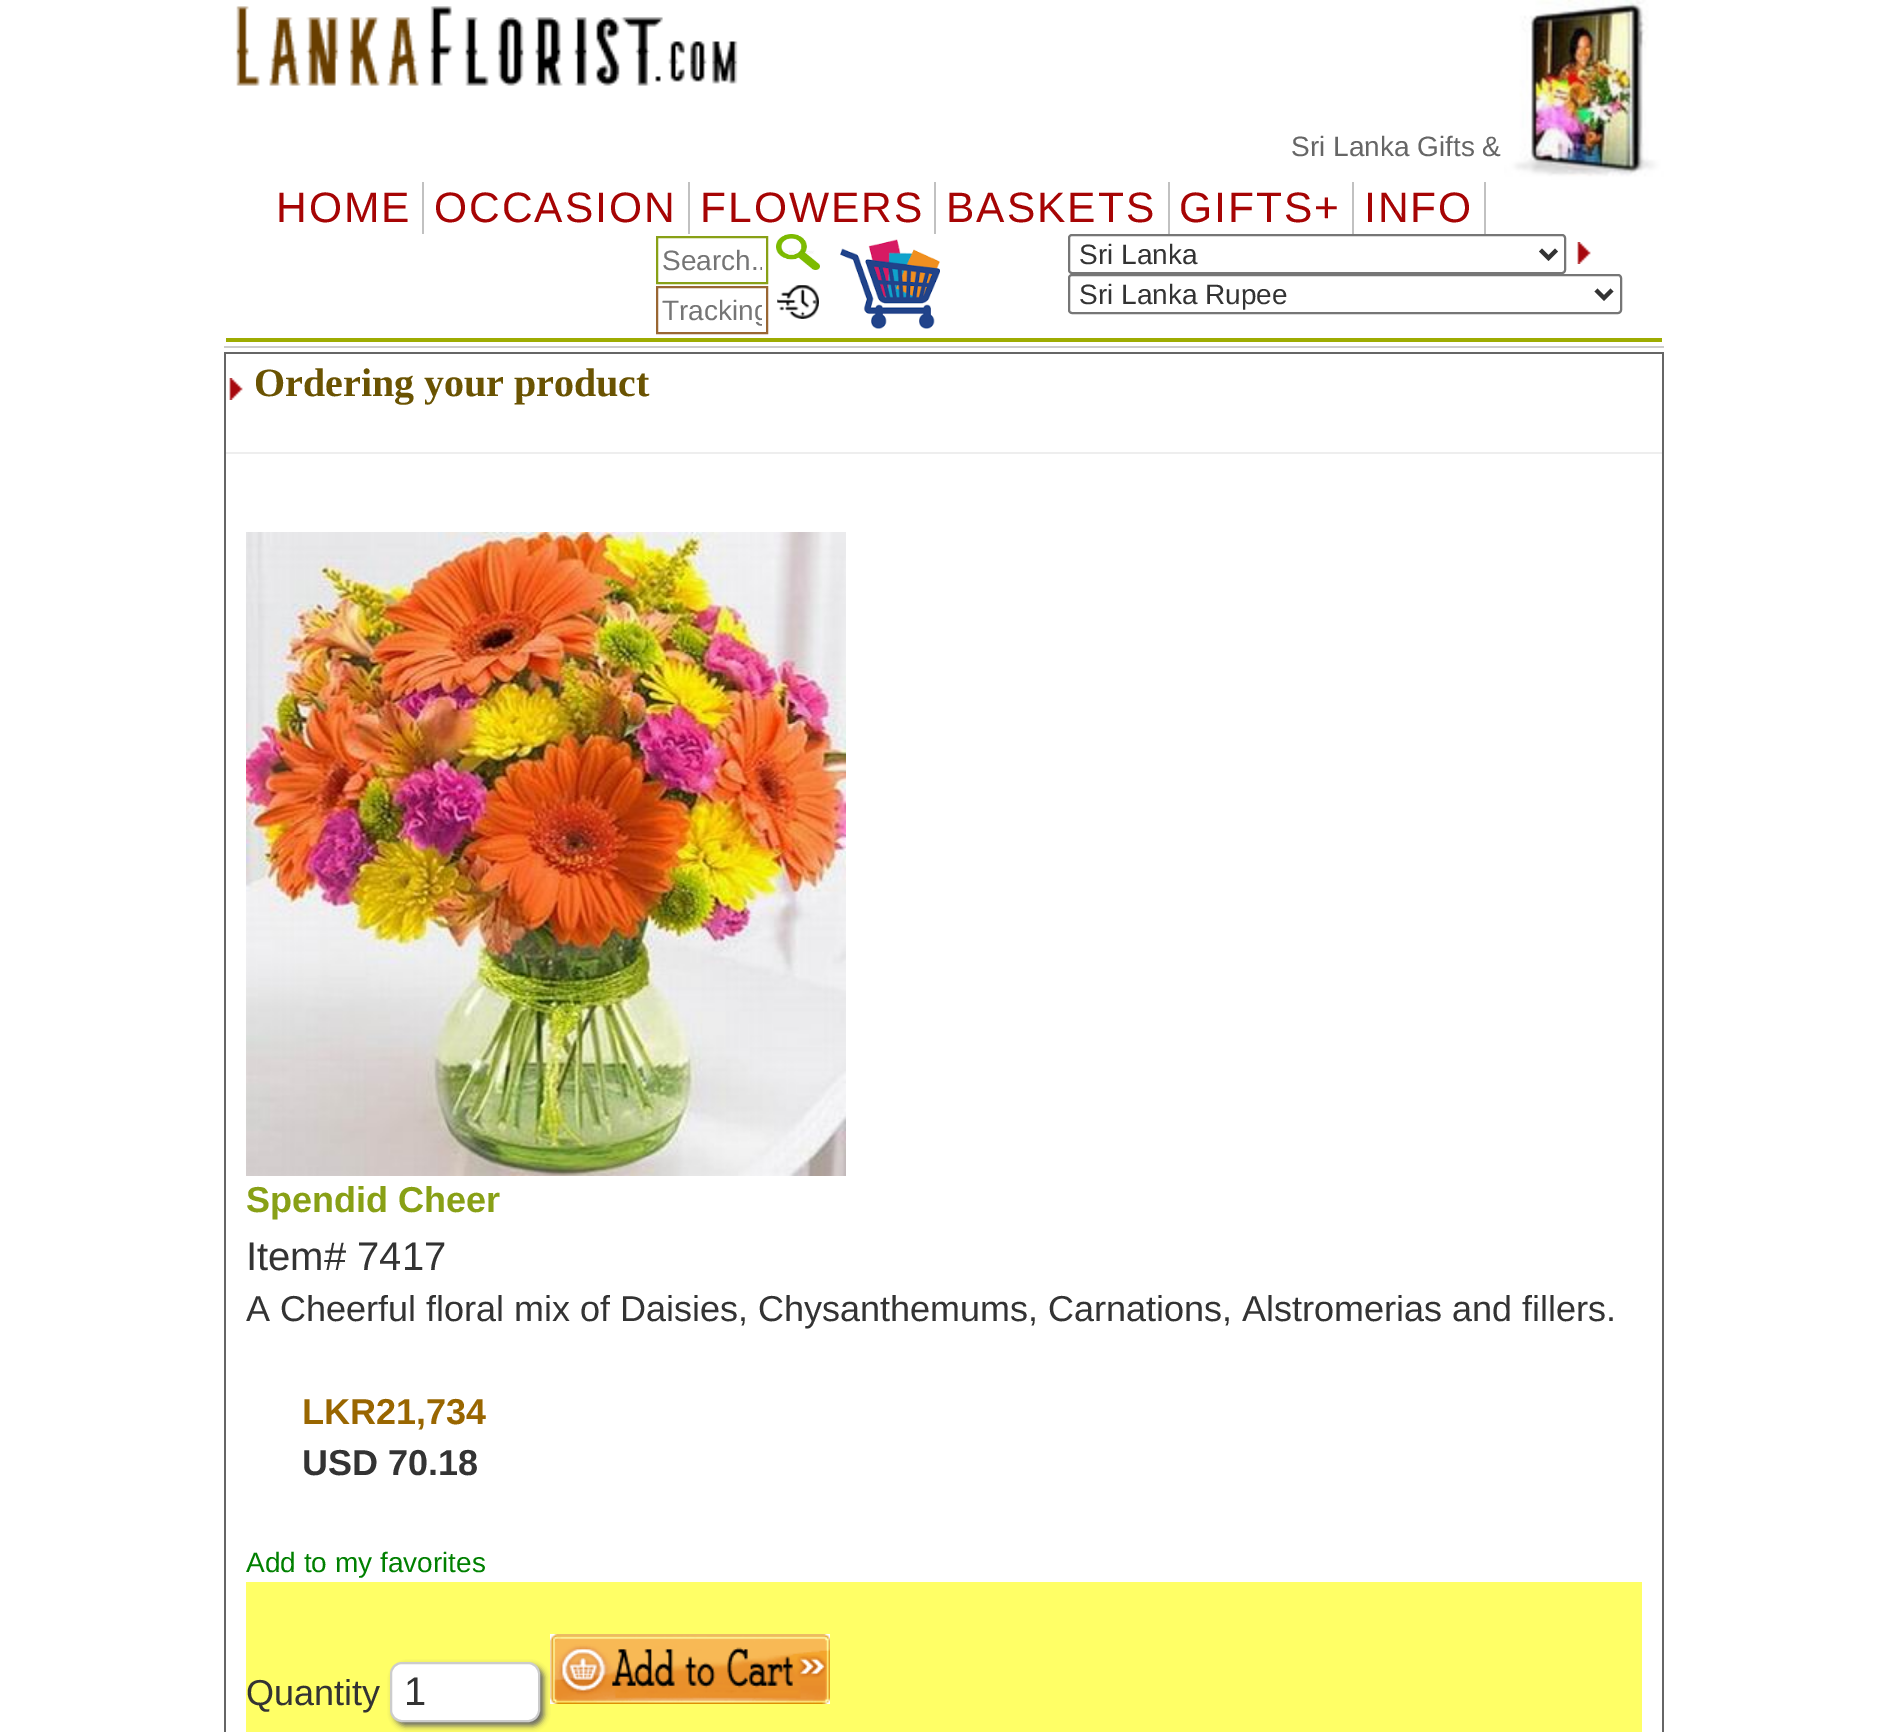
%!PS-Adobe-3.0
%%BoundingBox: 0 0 1898 1732
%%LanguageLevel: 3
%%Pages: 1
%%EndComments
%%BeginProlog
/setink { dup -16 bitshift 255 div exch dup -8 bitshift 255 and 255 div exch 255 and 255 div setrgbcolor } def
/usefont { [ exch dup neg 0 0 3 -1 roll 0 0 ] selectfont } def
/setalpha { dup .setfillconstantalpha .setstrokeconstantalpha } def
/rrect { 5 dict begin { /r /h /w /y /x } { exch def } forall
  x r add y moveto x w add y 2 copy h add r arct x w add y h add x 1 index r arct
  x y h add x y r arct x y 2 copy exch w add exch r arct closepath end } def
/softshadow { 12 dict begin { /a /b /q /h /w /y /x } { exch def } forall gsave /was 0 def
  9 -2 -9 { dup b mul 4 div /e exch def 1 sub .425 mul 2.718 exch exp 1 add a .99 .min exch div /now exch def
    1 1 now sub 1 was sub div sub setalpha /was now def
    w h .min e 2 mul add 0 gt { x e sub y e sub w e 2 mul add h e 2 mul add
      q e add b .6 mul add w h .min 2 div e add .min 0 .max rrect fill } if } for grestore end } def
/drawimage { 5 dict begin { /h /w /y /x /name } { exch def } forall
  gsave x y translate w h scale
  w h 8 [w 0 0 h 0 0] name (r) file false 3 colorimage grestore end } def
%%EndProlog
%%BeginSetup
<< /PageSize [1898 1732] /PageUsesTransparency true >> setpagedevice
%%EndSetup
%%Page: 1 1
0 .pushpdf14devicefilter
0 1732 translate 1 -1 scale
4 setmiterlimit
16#FFFFFF setink
0 0 1898 1732 rectfill
(img1.raw) 236 6 502 80 drawimage
(img2.raw) 1504 0 160 180 drawimage
/LiberationSans-Regular 28 usefont
16#666666 setink
1291 156 moveto (Sri Lanka Gifts &) show
16#9EAC01 setink
226 338 1436 4 rectfill
16#C1C1C1 setink
422 182 2 52 rectfill
/LiberationSans-Regular 42.5 usefont
16#A60404 setink
276 222 moveto 2 0 (HOME) ashow
16#C1C1C1 setink
688 182 2 52 rectfill
16#A60404 setink
434 222 moveto 2 0 (OCCASION) ashow
16#C1C1C1 setink
934 182 2 52 rectfill
16#A60404 setink
700 222 moveto 2 0 (FLOWERS) ashow
16#C1C1C1 setink
1168 182 2 52 rectfill
16#A60404 setink
946 222 moveto 2 0 (BASKETS) ashow
16#C1C1C1 setink
1352 182 2 52 rectfill
16#A60404 setink
1179 222 moveto 2 0 (GIFTS+) ashow
16#C1C1C1 setink
1484 182 2 52 rectfill
16#A60404 setink
1364 222 moveto 2 0 (INFO) ashow
16#88A016 setink
2 setlinewidth
657 237 110 46 rectstroke
gsave
662 244 100 32 rectclip
/LiberationSans-Regular 28 usefont
16#757575 setink
662 270 moveto (Search..) show
grestore
(img3.raw) 776 234 44 36 drawimage
16#996633 setink
657 287 110 46 rectstroke
gsave
662 294 100 32 rectclip
/LiberationSans-Regular 28 usefont
16#757575 setink
662 320 moveto (Tracking) show
grestore
(img4.raw) 777 285 42 34 drawimage
(img5.raw) 840 239 100 90 drawimage
16#767676 setink
1069 235 496 38 3 rrect stroke
16#333333 setink
4 setlinewidth
1540.5 250 moveto 1548.5 258 lineto 1556.5 250 lineto stroke
/LiberationSans-Regular 28 usefont
1079 264 moveto (Sri Lanka) show
(img6.raw) 1577 242 14 22 drawimage
16#767676 setink
2 setlinewidth
1069 275 552 38 3 rrect stroke
16#333333 setink
4 setlinewidth
1596 290 moveto 1604 298 lineto 1612 290 lineto stroke
1079 304 moveto (Sri Lanka Rupee) show
[
    [224 346 1440 2 16#CCCCCC]
    [224 352 1440 2 16#666666]
    [1662 352 2 1380 16#666666]
    [224 352 2 1380 16#666666]
] { aload pop setink rectfill } forall
(img6.raw) 229 378 14 22 drawimage
/LiberationSerif-Bold 40 usefont
16#6A5302 setink
254 396 moveto (Ordering your product) show
16#EEEEEE setink
226 452 1436 2 rectfill
(img7.raw) 246 532 600 644 drawimage
/LiberationSans-Bold 36 usefont
16#88A016 setink
246 1212 moveto (Spendid Cheer) show
/LiberationSans-Regular 40 usefont
16#333333 setink
246 1270 moveto (Item# 7417) show
/LiberationSans-Regular 36 usefont
246 1321 moveto (A Cheerful floral mix of Daisies, Chysanthemums, Carnations, Alstromerias and fillers.) show
/LiberationSans-Bold 36 usefont
16#996600 setink
302 1424 moveto (LKR21,734) show
16#333333 setink
302 1475 moveto (USD 70.18) show
/LiberationSans-Regular 28 usefont
16#008000 setink
246 1572 moveto (Add to my favorites) show
16#FFFF66 setink
246 1582 1396 150 rectfill
/LiberationSans-Regular 36 usefont
16#333333 setink
246 1705 moveto (Quantity) show
(img8.raw) 550 1634 280 70 drawimage
16#666666 setink
394 1666 150 60 12 3 1 softshadow
16#FFFFFF setink
391 1663 148 58 11 rrect gsave fill grestore
16#CCCCCC setink
2 setlinewidth
stroke
/LiberationSans-Regular 40 usefont
16#333333 setink
404 1705 moveto (1) show
.poppdf14devicefilter showpage
%%EOF
